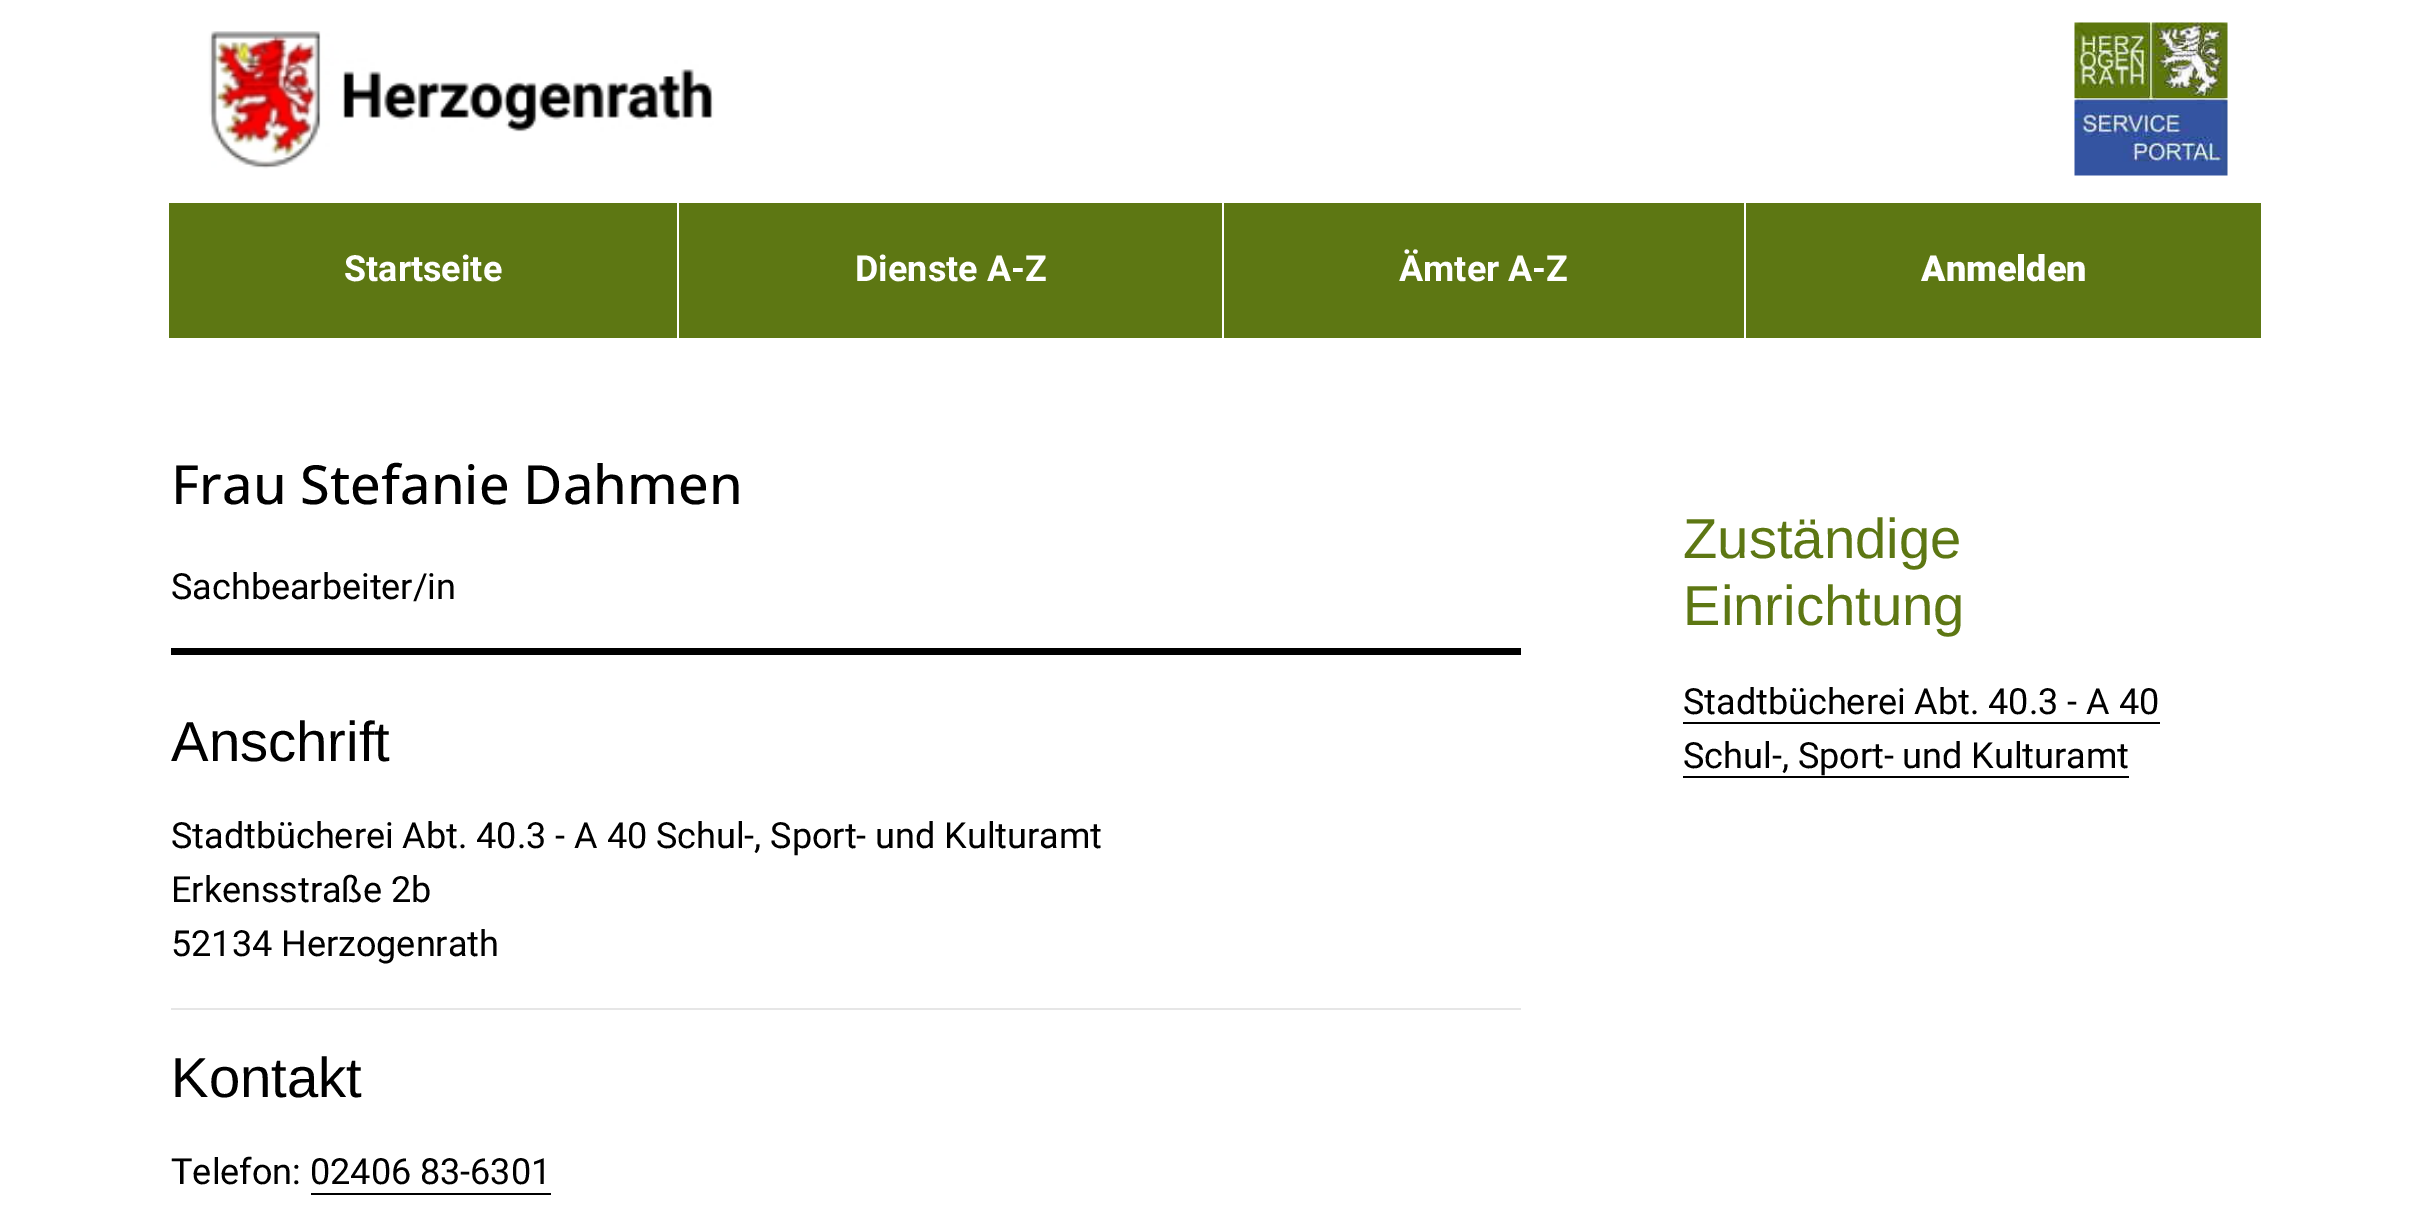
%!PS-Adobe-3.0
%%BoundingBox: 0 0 2429 1209
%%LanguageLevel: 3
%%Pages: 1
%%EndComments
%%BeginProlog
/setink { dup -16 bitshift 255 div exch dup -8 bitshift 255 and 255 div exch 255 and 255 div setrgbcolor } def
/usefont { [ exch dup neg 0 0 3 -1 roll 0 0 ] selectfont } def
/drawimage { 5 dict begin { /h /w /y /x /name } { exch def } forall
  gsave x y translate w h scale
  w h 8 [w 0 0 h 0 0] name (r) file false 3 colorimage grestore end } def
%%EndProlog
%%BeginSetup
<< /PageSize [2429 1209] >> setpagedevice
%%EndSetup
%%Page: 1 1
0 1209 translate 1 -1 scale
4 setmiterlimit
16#FFFFFF setink
0 0 2429 1209 rectfill
(img1.raw) 208 31 506 138 drawimage
(img2.raw) 2074 22 154 154 drawimage
16#5D7713 setink
169 203 2092 135 rectfill
16#FFFFFF setink
677 203 2 135 rectfill
/Roboto-Bold 36 usefont
344 281 moveto (Startseite) show
1222 203 2 135 rectfill
855 281 moveto (Dienste A-Z) show
1744 203 2 135 rectfill
1399 281 moveto (Ämter A-Z) show
/Roboto-Black 36 usefont
1921 281 moveto (Anmelden) show
16#000000 setink
171 648 1350 7 rectfill
/OpenSans-Medium 54 usefont
171 504 moveto (Frau Stefanie Dahmen) show
/Roboto-Regular 36 usefont
171 599 moveto (Sachbearbeiter/in) show
/LiberationSans-Regular 56.25 usefont
171 761 moveto (Anschrift) show
/Roboto-Regular 36 usefont
[
    [(Stadtbücherei Abt. 40.3 - A 40 Schul-, Sport- und Kulturamt) 171 848]
    [(Erkensstraße 2b) 171 902]
    [(52134 Herzogenrath) 171 956]
] { aload pop moveto show } forall
16#E6E6E6 setink
171 1008 1350 2 rectfill
/LiberationSans-Regular 56.25 usefont
16#000000 setink
171 1097 moveto (Kontakt) show
/Roboto-Regular 36 usefont
171 1184 moveto (Telefon: 02406 83-6301) show
311 1193 240 2 rectfill
/LiberationSans-Regular 56.25 usefont
16#5D7713 setink
1683 558 moveto (Zuständige) show
1683 625 moveto (Einrichtung) show
/Roboto-Regular 36 usefont
16#000000 setink
1683 714 moveto (Stadtbücherei Abt. 40.3 - A 40) show
1683 722 477 2 rectfill
1683 768 moveto (Schul-, Sport- und Kulturamt) show
1683 776 446 2 rectfill
showpage
%%EOF
